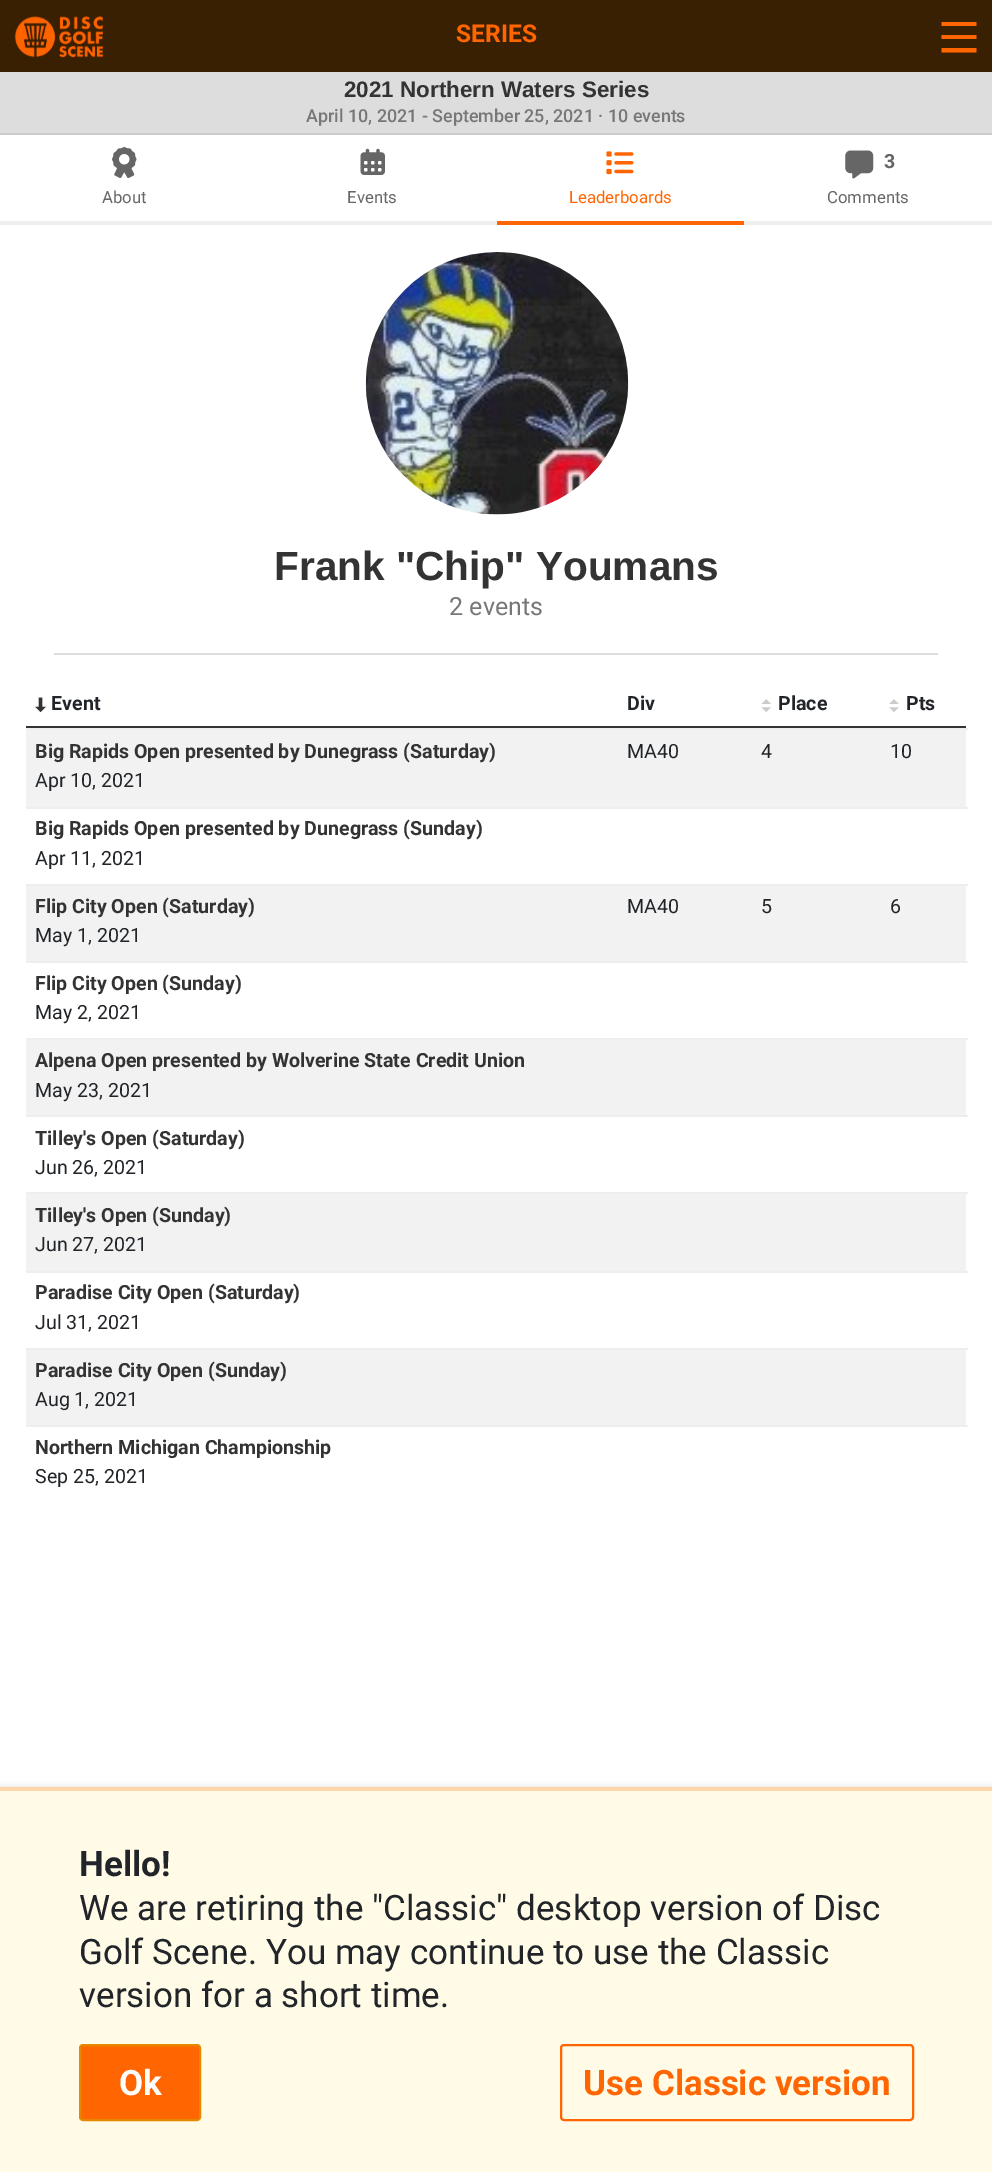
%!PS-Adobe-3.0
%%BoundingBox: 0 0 992 2172
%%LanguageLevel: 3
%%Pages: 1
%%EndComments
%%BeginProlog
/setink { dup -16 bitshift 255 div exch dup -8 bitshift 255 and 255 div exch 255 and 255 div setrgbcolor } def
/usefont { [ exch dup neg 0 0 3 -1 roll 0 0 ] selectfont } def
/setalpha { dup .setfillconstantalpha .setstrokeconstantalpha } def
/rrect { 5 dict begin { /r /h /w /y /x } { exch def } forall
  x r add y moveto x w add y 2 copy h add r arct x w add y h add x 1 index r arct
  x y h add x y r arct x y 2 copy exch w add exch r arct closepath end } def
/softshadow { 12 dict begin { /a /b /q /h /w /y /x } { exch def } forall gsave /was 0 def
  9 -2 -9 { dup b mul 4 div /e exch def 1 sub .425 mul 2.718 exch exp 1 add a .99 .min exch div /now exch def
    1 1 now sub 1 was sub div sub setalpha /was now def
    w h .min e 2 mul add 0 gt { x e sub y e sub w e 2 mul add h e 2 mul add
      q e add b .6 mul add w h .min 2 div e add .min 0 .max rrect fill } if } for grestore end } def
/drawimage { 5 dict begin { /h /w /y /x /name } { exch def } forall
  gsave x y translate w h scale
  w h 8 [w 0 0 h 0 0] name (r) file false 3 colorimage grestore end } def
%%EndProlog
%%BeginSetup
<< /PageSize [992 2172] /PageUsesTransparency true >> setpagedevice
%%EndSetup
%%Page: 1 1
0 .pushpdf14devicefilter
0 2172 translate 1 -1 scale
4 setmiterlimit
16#FFFFFF setink
0 0 992 2172 rectfill
16#3A2002 setink
0 0 992 72 rectfill
(img1.raw) 14 16 90 42 drawimage
16#FF6500 setink
941.5 22 moveto 976.5 22 lineto 976.5 26 lineto 941.5 26 lineto closepath 941.5 35 moveto 976.5 35 lineto 976.5 39 lineto 941.5 39 lineto closepath 941.5 48 moveto 976.5 48 lineto 976.5 52.5 lineto 941.5 52.5 lineto closepath fill
/Roboto-Bold 24.5 usefont
456 42 moveto (SERIES) show
16#DDDDDD setink
0 72 992 61 rectfill
16#CCCCCC setink
0 133 992 2 rectfill
/LiberationSans-Bold 22.4 usefont
16#333333 setink
344 97 moveto (2021 Northern Waters Series) show
/Roboto-Medium 17.9 usefont
16#777777 setink
306 122 moveto (April 10, 2021 - September 25, 2021 · 10 events) show
16#EEEEEE setink
0 221 497 4 rectfill
(img2.raw) 112 147 25 32 drawimage
/Roboto-Regular 16.75 usefont
16#666666 setink
102 203 moveto (About) show
(img3.raw) 360 148 25 27 drawimage
347 203 moveto (Events) show
16#FF6500 setink
497 221 247 4 rectfill
(img4.raw) 606 151 28 24 drawimage
569 203 moveto (Leaderboards) show
16#EEEEEE setink
744 221 248 4 rectfill
(img5.raw) 845 150 29 29 drawimage
/Roboto-Bold 19.6 usefont
16#666666 setink
884 168 moveto (3) show
/Roboto-Regular 16.75 usefont
827 203 moveto (Comments) show
16#DDDDDD setink
54 653 884 2 rectfill
(img6.raw) 365 252 264 263 drawimage
/LiberationSans-Bold 40.6 usefont
16#333333 setink
274 580 moveto (Frank "Chip" Youmans) show
/Roboto-Regular 25 usefont
16#777777 setink
449 615 moveto (2 events) show
16#333333 setink
26 726 940 2 rectfill
(img7.raw) 35 697 11 16 drawimage
/Roboto-Bold 19.6 usefont
16#212529 setink
51 710 moveto (Event) show
627 710 moveto (Div) show
(img8.raw) 761 699 10 13 drawimage
778 710 moveto (Place) show
(img9.raw) 889 699 10 13 drawimage
906 710 moveto (Pts) show
16#F2F2F2 setink
26 730 940 77 rectfill
16#333333 setink
35 758 moveto (Big Rapids Open presented by Dunegrass \(Saturday\)) show
/Roboto-Regular 19.6 usefont
16#212529 setink
[
    [(Apr 10, 2021) 35 787]
    [(MA40) 627 758]
    [(4) 761 758]
] { aload pop moveto show } forall
16#EEEEEE setink
26 728 942 2 rectfill
16#212529 setink
890 758 moveto (10) show
16#EEEEEE setink
26 807 942 2 rectfill
/Roboto-Bold 19.6 usefont
16#333333 setink
35 835 moveto (Big Rapids Open presented by Dunegrass \(Sunday\)) show
/Roboto-Regular 19.6 usefont
16#212529 setink
35 865 moveto (Apr 11, 2021) show
16#F2F2F2 setink
26 886 940 75 rectfill
/Roboto-Bold 19.6 usefont
16#333333 setink
35 913 moveto (Flip City Open \(Saturday\)) show
/Roboto-Regular 19.6 usefont
16#212529 setink
[
    [(May 1, 2021) 35 942]
    [(MA40) 627 913]
    [(5) 761 913]
] { aload pop moveto show } forall
16#EEEEEE setink
26 884 942 2 rectfill
16#212529 setink
890 913 moveto (6) show
16#EEEEEE setink
26 961 942 2 rectfill
/Roboto-Bold 19.6 usefont
16#333333 setink
35 990 moveto (Flip City Open \(Sunday\)) show
/Roboto-Regular 19.6 usefont
16#212529 setink
35 1019 moveto (May 2, 2021) show
16#F2F2F2 setink
26 1040 940 75 rectfill
16#EEEEEE setink
26 1038 942 2 rectfill
/Roboto-Bold 19.6 usefont
16#333333 setink
35 1067 moveto (Alpena Open presented by Wolverine State Credit Union) show
/Roboto-Regular 19.6 usefont
16#212529 setink
35 1097 moveto (May 23, 2021) show
16#EEEEEE setink
26 1115 942 2 rectfill
/Roboto-Bold 19.6 usefont
16#333333 setink
35 1145 moveto (Tilley's Open \(Saturday\)) show
/Roboto-Regular 19.6 usefont
16#212529 setink
35 1174 moveto (Jun 26, 2021) show
16#F2F2F2 setink
26 1194 940 77 rectfill
16#EEEEEE setink
26 1192 942 2 rectfill
/Roboto-Bold 19.6 usefont
16#333333 setink
35 1222 moveto (Tilley's Open \(Sunday\)) show
/Roboto-Regular 19.6 usefont
16#212529 setink
35 1251 moveto (Jun 27, 2021) show
16#EEEEEE setink
26 1271 942 2 rectfill
/Roboto-Bold 19.6 usefont
16#333333 setink
35 1299 moveto (Paradise City Open \(Saturday\)) show
/Roboto-Regular 19.6 usefont
16#212529 setink
35 1329 moveto (Jul 31, 2021) show
16#F2F2F2 setink
26 1350 940 75 rectfill
16#EEEEEE setink
26 1348 942 2 rectfill
/Roboto-Bold 19.6 usefont
16#333333 setink
35 1377 moveto (Paradise City Open \(Sunday\)) show
/Roboto-Regular 19.6 usefont
16#212529 setink
35 1406 moveto (Aug 1, 2021) show
16#EEEEEE setink
26 1425 942 2 rectfill
/Roboto-Bold 19.6 usefont
16#333333 setink
35 1454 moveto (Northern Michigan Championship) show
/Roboto-Regular 19.6 usefont
16#212529 setink
35 1483 moveto (Sep 25, 2021) show
16#DDDDDD setink
0 1787 992 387 0 3.5 1 softshadow
16#FFFBE6 setink
0 1791 992 381 rectfill
16#FFD5AC setink
0 1787 992 4 rectfill
/Roboto-Bold 35 usefont
16#212529 setink
79 1876 moveto (Hello!) show
/Roboto-Regular 35 usefont
[
    [(We are retiring the "Classic" desktop version of Disc) 79 1920]
    [(Golf Scene. You may continue to use the Classic) 79 1964]
    [(version for a short time.) 79 2007]
] { aload pop moveto show } forall
16#FF6500 setink
80 2045 120 75 3 rrect gsave fill grestore
16#E58900 setink
2 setlinewidth
stroke
/Roboto-Bold 35 usefont
16#FFFFFF setink
119 2095 moveto (Ok) show
16#FF6500 setink
561 2045 352 75 3 rrect stroke
583 2095 moveto (Use Classic version) show
.poppdf14devicefilter showpage
%%EOF
